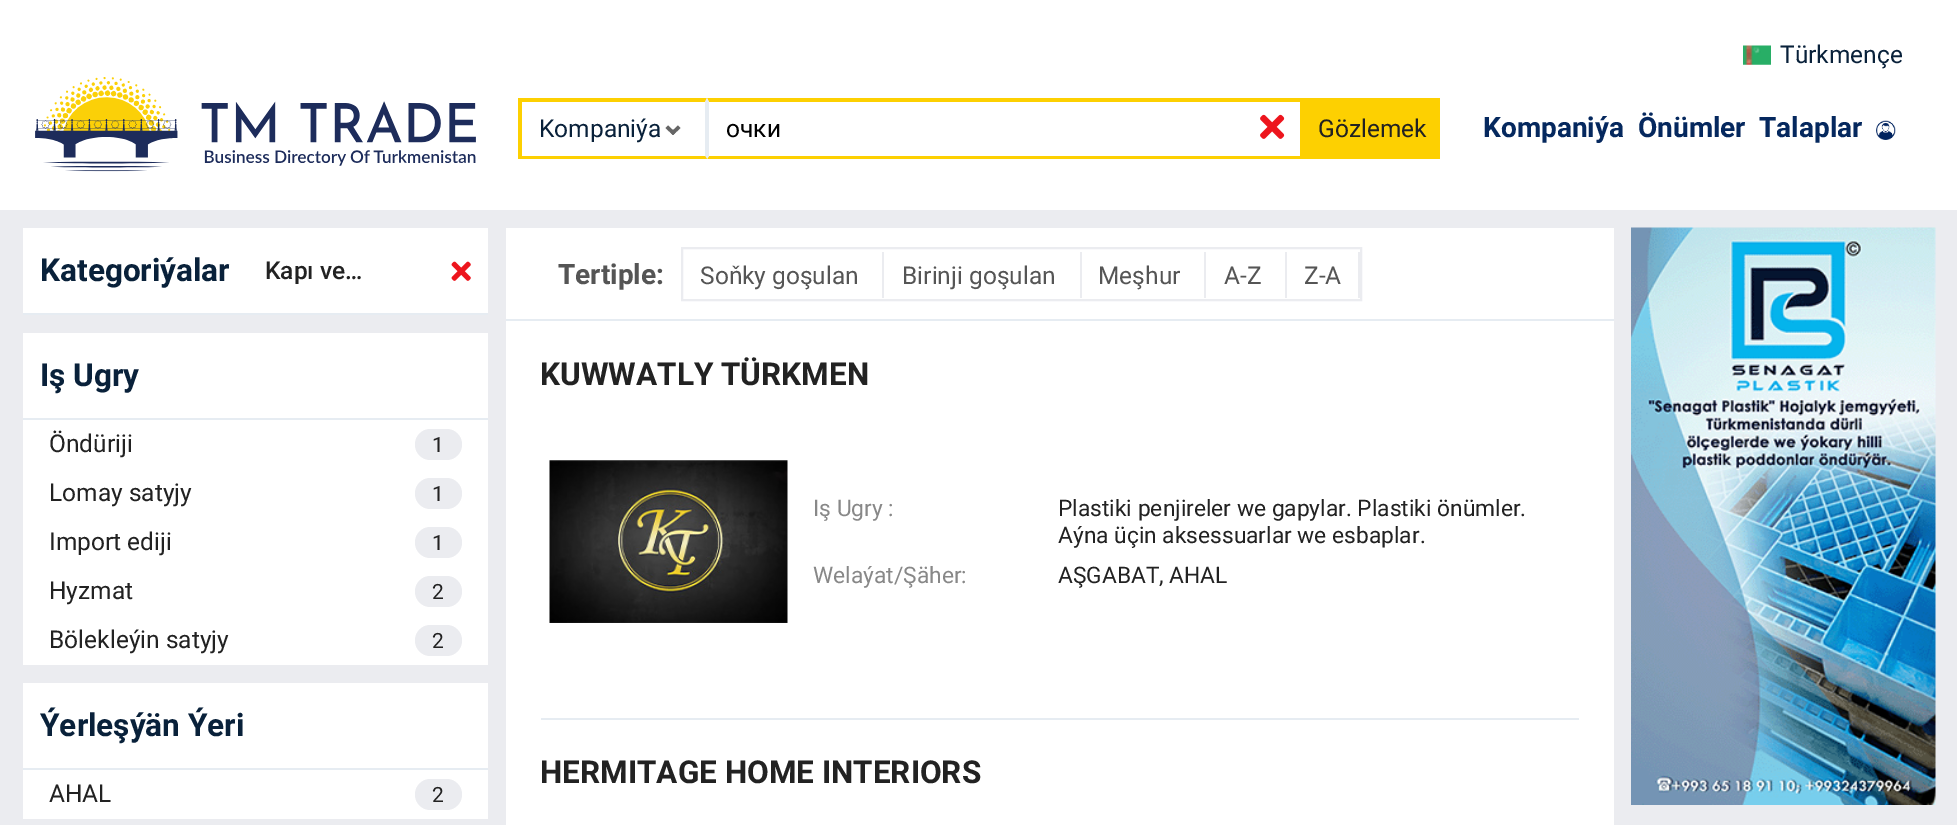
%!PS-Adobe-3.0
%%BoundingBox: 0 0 1957 825
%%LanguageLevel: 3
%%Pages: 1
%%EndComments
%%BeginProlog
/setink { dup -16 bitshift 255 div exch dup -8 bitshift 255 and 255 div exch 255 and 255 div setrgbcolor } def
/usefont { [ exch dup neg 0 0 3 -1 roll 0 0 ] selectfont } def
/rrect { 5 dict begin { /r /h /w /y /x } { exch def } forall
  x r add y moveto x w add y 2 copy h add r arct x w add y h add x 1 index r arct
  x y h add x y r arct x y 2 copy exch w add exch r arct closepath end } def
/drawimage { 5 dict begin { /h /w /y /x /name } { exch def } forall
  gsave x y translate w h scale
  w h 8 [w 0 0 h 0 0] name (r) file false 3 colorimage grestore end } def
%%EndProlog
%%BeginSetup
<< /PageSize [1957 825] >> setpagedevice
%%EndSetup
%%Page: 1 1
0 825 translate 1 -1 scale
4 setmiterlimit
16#EBECF0 setink
0 0 1957 825 rectfill
16#FFFFFF setink
0 0 1957 210 rectfill
(img1.raw) 1743 45 28 20 drawimage
/Roboto-Regular 24.5 usefont
16#09213A setink
1780 63 moveto (Türkmençe) show
(img2.raw) 35 77 441 95 drawimage
16#FDD001 setink
518 98 moveto 707 98 lineto 705 102 lineto 522 102 lineto closepath fill
16#E6ECF2 setink
707 98 moveto 707 159 lineto 705 156 lineto 705 102 lineto closepath fill
16#FDD001 setink
707 159 moveto 518 159 lineto 522 156 lineto 705 156 lineto closepath fill
518 98 4 61 rectfill
16#09213A setink
539 137 moveto (Kompaniýa) show
16#666666 setink
678 125.5 moveto 680.5 128 lineto 673 135 lineto 670.5 132.5 lineto closepath fill
668 125.5 moveto 675.5 132.5 lineto 673 135 lineto 665.5 128 lineto closepath fill
16#FDD001 setink
707 98 moveto 1304 98 lineto 1300 102 lineto 709 102 lineto closepath fill
1300 98 4 61 rectfill
1304 159 moveto 707 159 lineto 709 156 lineto 1300 156 lineto closepath fill
16#E6ECF2 setink
707 159 moveto 707 98 lineto 709 102 lineto 709 156 lineto closepath fill
16#000000 setink
726 137 moveto (очки) show
(img3.raw) 1260 114 25 25 drawimage
16#FDD001 setink
1304 98 136 61 rectfill
16#222222 setink
1318 137 moveto (Gözlemek) show
/Roboto-Bold 28 usefont
16#05285E setink
[
    [(Kompaniýa) 1483 137]
    [(Önümler) 1638 137]
    [(Talaplar) 1759 137]
] { aload pop moveto show } forall
(img4.raw) 1876 120 20 20 drawimage
16#FFFFFF setink
23 228 465 85 rectfill
16#E6ECF2 setink
23 313 465 2 rectfill
/Roboto-Bold 31.5 usefont
16#09213A setink
40 281 moveto (Kategoriýalar) show
/Roboto-Medium 24.5 usefont
16#222222 setink
265 279 moveto (Kapı ve…) show
(img5.raw) 451 261 20 20 drawimage
16#FFFFFF setink
23 333 465 332 rectfill
16#E6ECF2 setink
23 418 465 2 rectfill
/Roboto-Bold 31.5 usefont
16#09213A setink
40 386 moveto (Iş Ugry) show
/Roboto-Regular 24.5 usefont
16#222222 setink
49 452 moveto (Öndüriji) show
16#EBECF0 setink
415 429 47 31 15.5 rrect fill
/Roboto-Regular 21 usefont
16#222222 setink
432 452 moveto (1) show
/Roboto-Regular 24.5 usefont
49 501 moveto (Lomay satyjy) show
16#EBECF0 setink
415 478 47 31 15.5 rrect fill
/Roboto-Regular 21 usefont
16#222222 setink
432 501 moveto (1) show
/Roboto-Regular 24.5 usefont
49 550 moveto (Import ediji) show
16#EBECF0 setink
415 527 47 31 15.5 rrect fill
/Roboto-Regular 21 usefont
16#222222 setink
432 550 moveto (1) show
/Roboto-Regular 24.5 usefont
49 599 moveto (Hyzmat) show
16#EBECF0 setink
415 576 47 31 15.5 rrect fill
/Roboto-Regular 21 usefont
16#222222 setink
432 599 moveto (2) show
/Roboto-Regular 24.5 usefont
49 648 moveto (Bölekleýin satyjy) show
16#EBECF0 setink
415 625 47 31 15.5 rrect fill
/Roboto-Regular 21 usefont
16#222222 setink
432 648 moveto (2) show
16#FFFFFF setink
23 683 465 136 rectfill
16#E6ECF2 setink
23 768 465 2 rectfill
/Roboto-Bold 31.5 usefont
16#09213A setink
40 736 moveto (Ýerleşýän Ýeri) show
/Roboto-Regular 24.5 usefont
16#222222 setink
49 802 moveto (AHAL) show
16#EBECF0 setink
415 779 47 31 15.5 rrect fill
/Roboto-Regular 21 usefont
16#222222 setink
432 802 moveto (2) show
16#FFFFFF setink
506 228 1108 597 rectfill
16#E6ECF2 setink
506 319 1108 2 rectfill
/Roboto-Bold 28 usefont
16#555555 setink
558 284 moveto (Tertiple:) show
16#EBECF0 setink
2 setlinewidth
682 248 679 52 rectstroke
/Roboto-Regular 24.5 usefont
16#555555 setink
700 284 moveto (Soňky goşulan) show
16#EBECF0 setink
882 252 2 46 rectfill
16#555555 setink
902 284 moveto (Birinji goşulan) show
16#EBECF0 setink
1080 252 2 46 rectfill
16#555555 setink
1098 284 moveto (Meşhur) show
16#EBECF0 setink
1204 252 2 46 rectfill
16#555555 setink
1224 284 moveto (A-Z) show
16#EBECF0 setink
1285 252 2 46 rectfill
16#555555 setink
1304 284 moveto (Z-A) show
16#EBECF0 setink
1358 252 2 46 rectfill
16#E6ECF2 setink
541 718 1038 2 rectfill
/Roboto-Bold 31.5 usefont
16#222222 setink
540 385 moveto (KUWWATLY TÜRKMEN) show
(img6.raw) 549 460 239 163 drawimage
/Roboto-Regular 22.75 usefont
16#888888 setink
813 516 moveto (Iş Ugry :) show
16#222222 setink
1058 516 moveto (Plastiki penjireler we gapylar. Plastiki önümler.) show
1058 543 moveto (Aýna üçin aksessuarlar we esbaplar.) show
16#888888 setink
813 583 moveto (Welaýat/Şäher:) show
16#222222 setink
1058 583 moveto (AŞGABAT, AHAL) show
/Roboto-Bold 31.5 usefont
540 783 moveto (HERMITAGE HOME INTERIORS) show
(img7.raw) 1631 227 305 578 drawimage
showpage
%%EOF
